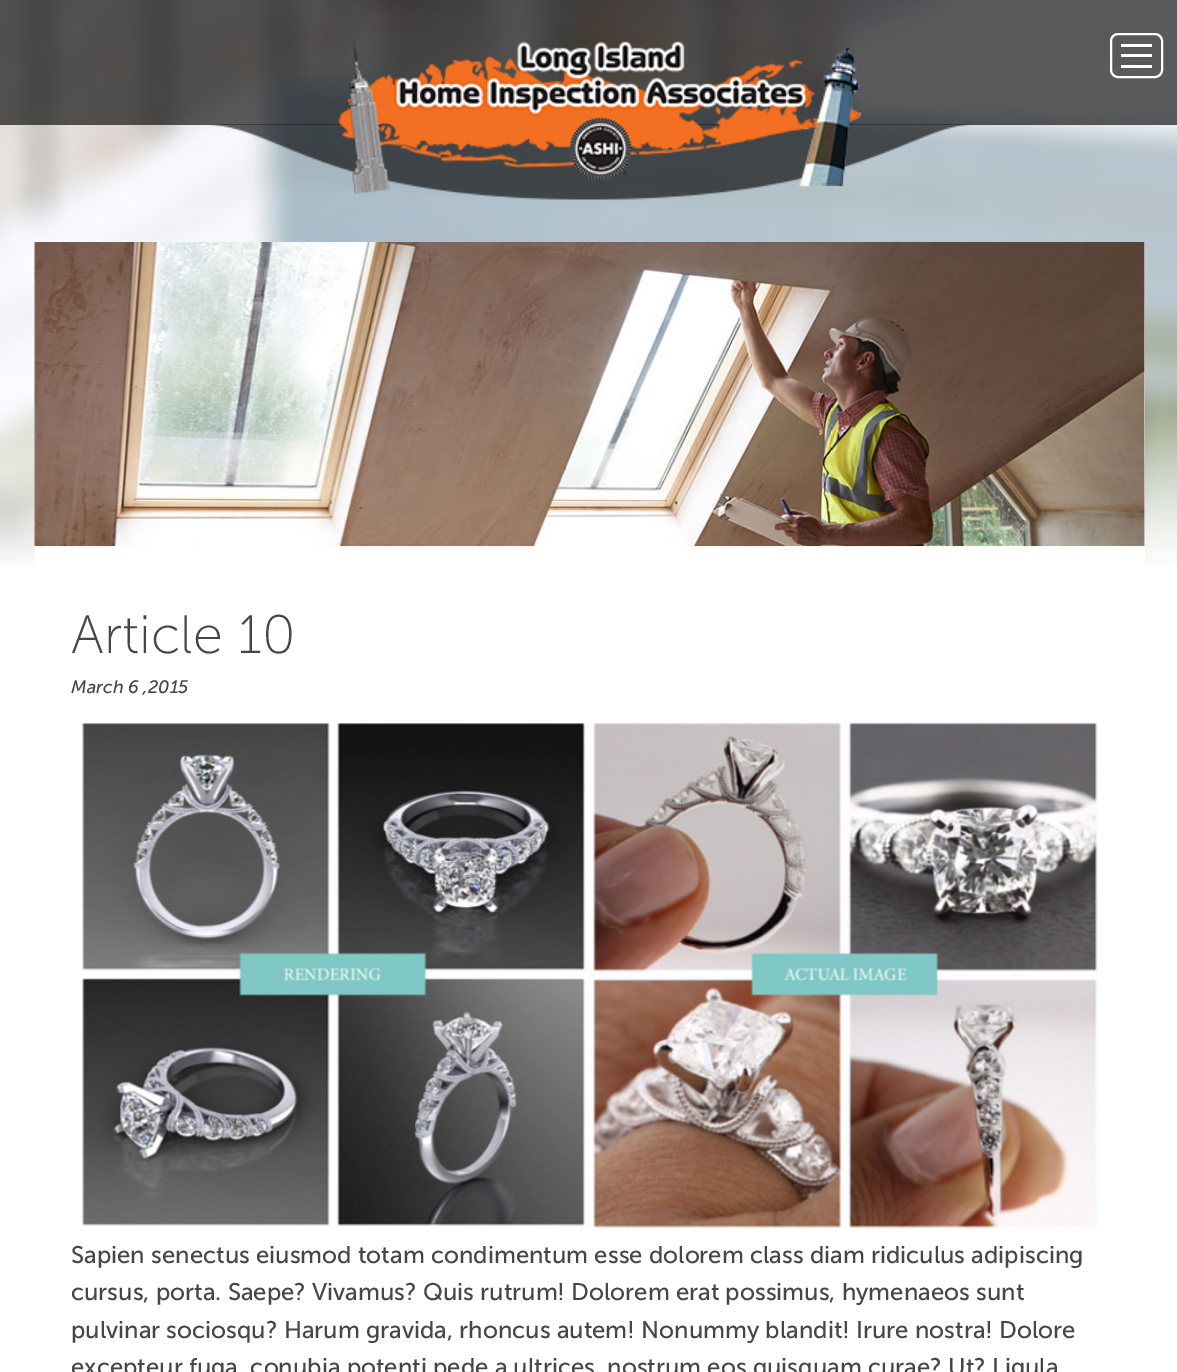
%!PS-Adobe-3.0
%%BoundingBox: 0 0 1177 1372
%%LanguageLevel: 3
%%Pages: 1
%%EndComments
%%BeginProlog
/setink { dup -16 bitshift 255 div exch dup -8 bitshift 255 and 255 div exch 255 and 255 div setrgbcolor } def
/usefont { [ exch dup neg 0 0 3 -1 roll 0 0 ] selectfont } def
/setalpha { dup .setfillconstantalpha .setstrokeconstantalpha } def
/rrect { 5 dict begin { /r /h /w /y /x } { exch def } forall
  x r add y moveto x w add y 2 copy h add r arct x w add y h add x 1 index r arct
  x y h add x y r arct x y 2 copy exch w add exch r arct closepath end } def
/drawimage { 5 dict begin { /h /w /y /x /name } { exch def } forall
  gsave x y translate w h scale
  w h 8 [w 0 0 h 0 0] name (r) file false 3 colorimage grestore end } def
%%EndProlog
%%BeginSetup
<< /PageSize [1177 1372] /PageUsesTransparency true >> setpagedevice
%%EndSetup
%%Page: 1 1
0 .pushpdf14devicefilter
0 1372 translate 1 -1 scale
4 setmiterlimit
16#FFFFFF setink
0 0 1177 1372 rectfill
(img3.raw) 0 0 1177 566 drawimage
0.64 setalpha
16#000000 setink
0 0 1177 125 rectfill
1 setalpha
(img1.raw) 207 124 764 76 drawimage
(img2.raw) 338 41 523 153 drawimage
16#FFFFFF setink
2 setlinewidth
1111 34 51 43 7 rrect stroke
[
    [1121 44 31 3 16#FFFFFF]
    [1121 54 31 3 16#FFFFFF]
    [1121 65 31 3 16#FFFFFF]
    [35 242 1110 324 16#FFFFFF]
] { aload pop setink rectfill } forall
(img4.raw) 34 242 1111 305 drawimage
/MuseoSans-ExtraLight 54 usefont
16#464646 setink
71 653 moveto (Article 10) show
/MuseoSans-Italic 18 usefont
71 693 moveto (March 6 ,2015) show
(img5.raw) 82 722 1016 507 drawimage
/MuseoSans-Regular 24 usefont
[
    [(Sapien senectus eiusmod totam condimentum esse dolorem class diam ridiculus adipiscing) 71 1263]
    [(cursus, porta. Saepe? Vivamus? Quis rutrum! Dolorem erat possimus, hymenaeos sunt) 71 1300]
    [(pulvinar sociosqu? Harum gravida, rhoncus autem! Nonummy blandit! Irure nostra! Dolore) 71 1338]
    [(excepteur fuga, conubia potenti pede a ultrices, nostrum eos quisquam curae? Ut? Ligula) 71 1375]
] { aload pop moveto show } forall
.poppdf14devicefilter showpage
%%EOF
